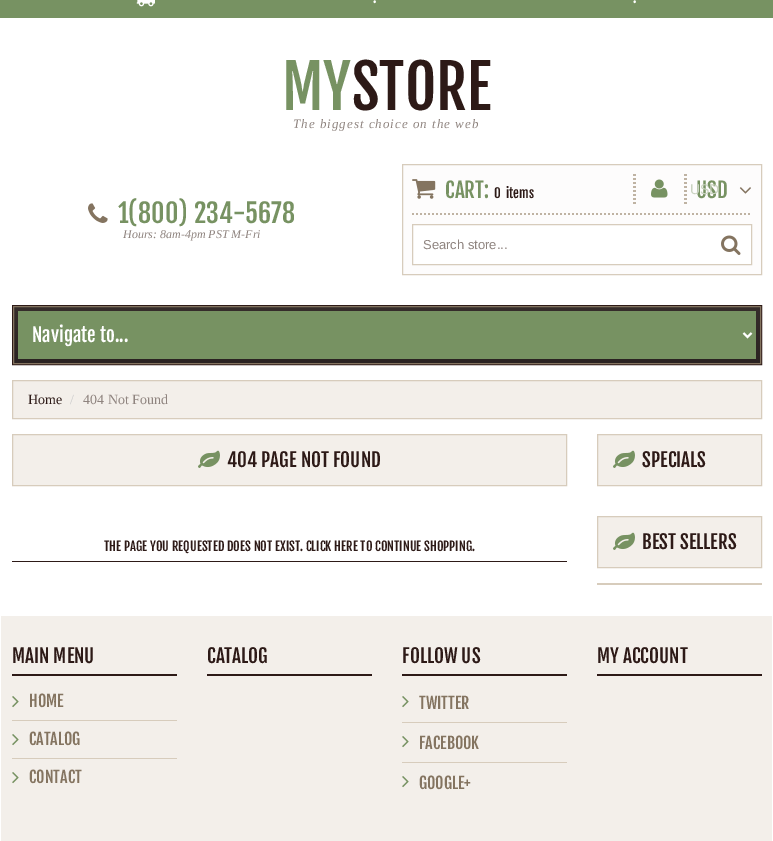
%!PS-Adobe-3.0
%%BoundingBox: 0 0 773 841
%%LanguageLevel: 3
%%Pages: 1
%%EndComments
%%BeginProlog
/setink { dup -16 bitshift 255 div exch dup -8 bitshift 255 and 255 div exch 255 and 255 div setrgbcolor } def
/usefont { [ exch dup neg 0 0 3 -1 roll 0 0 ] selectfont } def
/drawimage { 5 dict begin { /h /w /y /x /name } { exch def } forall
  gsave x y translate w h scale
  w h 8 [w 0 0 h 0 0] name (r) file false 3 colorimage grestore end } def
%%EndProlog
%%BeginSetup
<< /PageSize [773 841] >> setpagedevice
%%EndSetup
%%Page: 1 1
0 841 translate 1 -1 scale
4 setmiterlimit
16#779262 setink
0 0 773 841 rectfill
(img1.raw) 136 0 19 7 drawimage
/FjallaOne-Regular 15 usefont
16#FFFFFF setink
373 3 moveto (.) show
633 3 moveto (.) show
0 18 773 598 rectfill
/FjallaOne-Regular 60 usefont
16#779262 setink
282 110 moveto (MY) show
16#2D1A17 setink
352 110 moveto (STORE) show
/LiberationSerif-Italic 13 usefont
16#8F847F setink
293 128 moveto 1 0 (The biggest choice on the web) ashow
(img2.raw) 88 203 20 20 drawimage
/FjallaOne-Regular 26 usefont
16#779262 setink
118 223 moveto (1\(800\) 234-5678) show
/LiberationSerif-Italic 12 usefont
16#8F847F setink
123 238 moveto (Hours: 8am-4pm PST M-Fri) show
16#FDFCFC setink
402.5 164.5 moveto 761.5 164.5 lineto 761.5 274.5 lineto 402.5 274.5 lineto closepath gsave fill grestore
16#D7CCBC setink
stroke
(img3.raw) 412 179 24 20 drawimage
/FjallaOne-Regular 21 usefont
16#779262 setink
445 198 moveto (CART:) show
/FjallaOne-Regular 13 usefont
16#2D1A17 setink
494 198 moveto (0) show
506 198 moveto (items) show
(img4.raw) 633 174 3 30 drawimage
(img5.raw) 651 179 17 19 drawimage
(img4.raw) 684 174 3 30 drawimage
/FjallaOne-Regular 21 usefont
16#779262 setink
696 198 moveto (USD) show
/LiberationSans-Regular 14 usefont
16#CAD3C1 setink
690 194 moveto (USD) show
(img6.raw) 739 187 12 7 drawimage
(img7.raw) 412 213 338 2 drawimage
16#FFFFFF setink
412.5 224.5 moveto 751.5 224.5 lineto 751.5 264.5 lineto 412.5 264.5 lineto closepath gsave fill grestore
16#D7CCBC setink
stroke
/LiberationSans-Regular 13 usefont
16#8F847F setink
423 249 moveto (Search store...) show
(img8.raw) 721 235 20 20 drawimage
16#2D1A17 setink
12.5 305.5 749 59 rectstroke
gsave 14 307 moveto 760 307 lineto 760 363 lineto 14 363 lineto closepath clip newpath
<< /ShadingType 2 /ColorSpace /DeviceRGB /Coords [387 307 387 363] /Extend [true true] /Function << /FunctionType 2 /Domain [0 1] /C0 [0.212 0.176 0.169] /C1 [0.169 0.137 0.133] /N 1 >> >> shfill grestore
16#847460 setink
13.5 306.5 747 57 rectstroke
16#779262 setink
18 311 738 48 rectfill
16#FFFFFF setink
2 setlinewidth
743.5 333 moveto 747.5 337 lineto 751.5 333 lineto stroke
/FjallaOne-Regular 19 usefont
32 342 moveto (Navigate to...) show
16#F3EFEA setink
12.5 380.5 moveto 761.5 380.5 lineto 761.5 418.5 lineto 12.5 418.5 lineto closepath gsave fill grestore
16#D7CCBC setink
1 setlinewidth
stroke
/LiberationSerif-Regular 14 usefont
16#2D1A17 setink
28 404 moveto (Home) show
16#CCCCCC setink
70 404 moveto (/) show
16#8F847F setink
83 404 moveto (404 Not Found) show
16#F3EFEA setink
12.5 434.5 moveto 566.5 434.5 lineto 566.5 485.5 lineto 12.5 485.5 lineto closepath gsave fill grestore
16#D7CCBC setink
stroke
(img9.raw) 198 450 22 18 drawimage
/FjallaOne-Regular 19 usefont
16#2D1A17 setink
227 467 moveto (404 PAGE NOT FOUND) show
12 561 555 1 rectfill
/FjallaOne-Regular 12.6 usefont
104 551 moveto (THE PAGE YOU REQUESTED DOES NOT EXIST. CLICK HERE TO CONTINUE SHOPPING.) show
16#F3EFEA setink
597.5 434.5 moveto 761.5 434.5 lineto 761.5 485.5 lineto 597.5 485.5 lineto closepath gsave fill grestore
16#D7CCBC setink
stroke
(img9.raw) 613 450 22 18 drawimage
/FjallaOne-Regular 19 usefont
16#2D1A17 setink
642 467 moveto (SPECIALS) show
16#F3EFEA setink
597.5 516.5 moveto 761.5 516.5 lineto 761.5 567.5 lineto 597.5 567.5 lineto closepath gsave fill grestore
16#D7CCBC setink
stroke
(img9.raw) 613 532 22 18 drawimage
16#2D1A17 setink
642 549 moveto (BEST SELLERS) show
[
    [597 583 165 2 16#D7CCBC]
    [1 616 771 225 16#F3EFEA]
    [772 616 1 225 16#FFFFFF]
    [0 616 1 225 16#FFFFFF]
    [12 674 165 2 16#2D1A17]
] { aload pop setink rectfill } forall
12 663 moveto (MAIN MENU) show
(img10.raw) 12 696 7 12 drawimage
/FjallaOne-Regular 16 usefont
16#847460 setink
29 707 moveto (HOME) show
16#D7CCBC setink
12 720 165 1 rectfill
(img10.raw) 12 734 7 12 drawimage
16#847460 setink
29 745 moveto (CATALOG) show
16#D7CCBC setink
12 758 165 1 rectfill
(img10.raw) 12 772 7 12 drawimage
16#847460 setink
29 783 moveto (CONTACT) show
16#2D1A17 setink
207 674 165 2 rectfill
/FjallaOne-Regular 19 usefont
207 663 moveto (CATALOG) show
402 674 165 2 rectfill
402 663 moveto (FOLLOW US) show
(img10.raw) 402 696 7 12 drawimage
/FjallaOne-Regular 16 usefont
16#847460 setink
419 709 moveto (TWITTER) show
16#D7CCBC setink
402 722 165 1 rectfill
(img10.raw) 402 736 7 12 drawimage
16#847460 setink
419 749 moveto (FACEBOOK) show
16#D7CCBC setink
402 762 165 1 rectfill
(img10.raw) 402 776 7 12 drawimage
16#847460 setink
419 789 moveto (GOOGLE+) show
16#2D1A17 setink
597 674 165 2 rectfill
/FjallaOne-Regular 19 usefont
597 663 moveto (MY ACCOUNT) show
showpage
%%EOF
